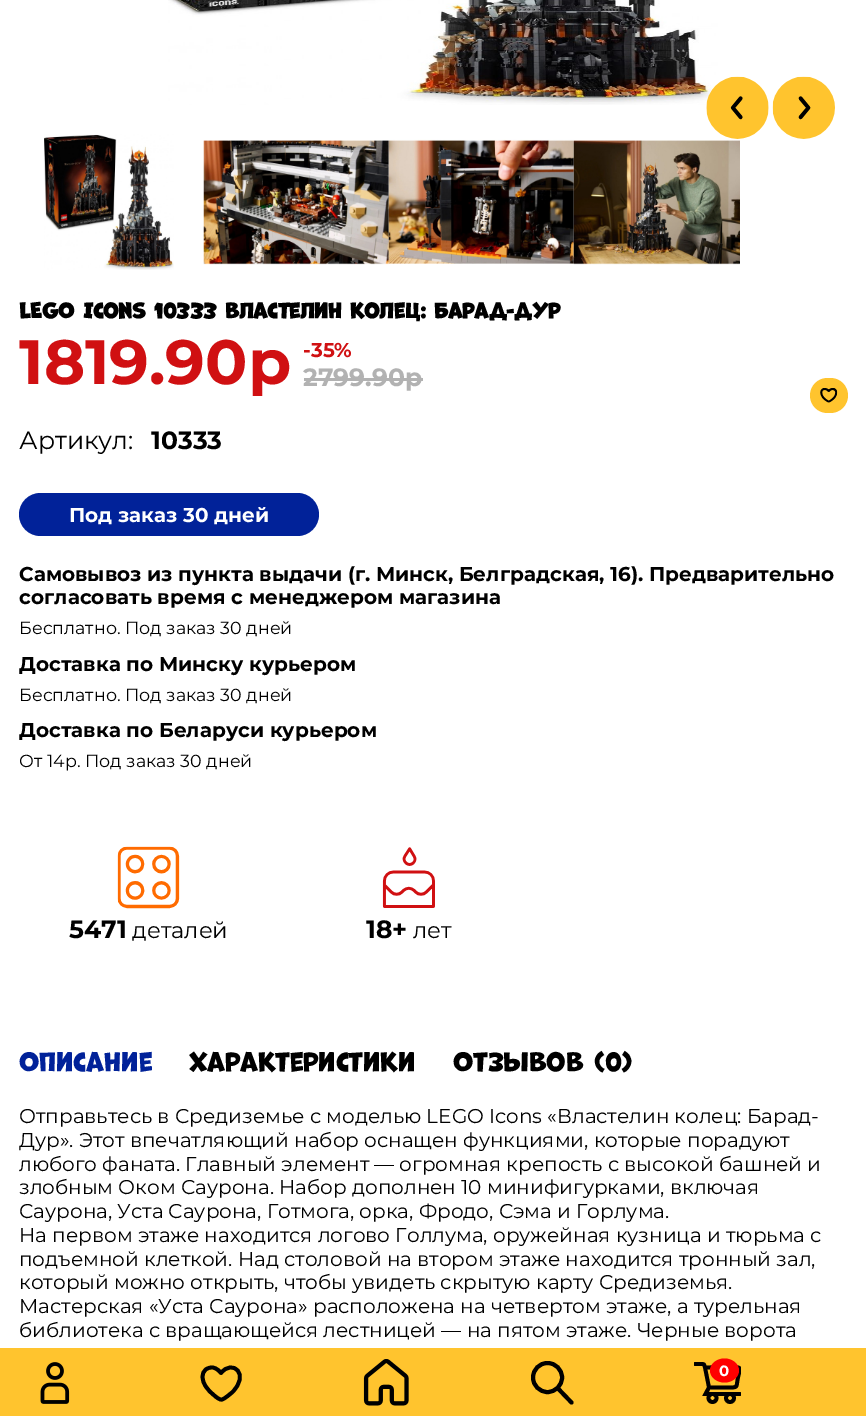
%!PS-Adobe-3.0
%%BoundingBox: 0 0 866 1416
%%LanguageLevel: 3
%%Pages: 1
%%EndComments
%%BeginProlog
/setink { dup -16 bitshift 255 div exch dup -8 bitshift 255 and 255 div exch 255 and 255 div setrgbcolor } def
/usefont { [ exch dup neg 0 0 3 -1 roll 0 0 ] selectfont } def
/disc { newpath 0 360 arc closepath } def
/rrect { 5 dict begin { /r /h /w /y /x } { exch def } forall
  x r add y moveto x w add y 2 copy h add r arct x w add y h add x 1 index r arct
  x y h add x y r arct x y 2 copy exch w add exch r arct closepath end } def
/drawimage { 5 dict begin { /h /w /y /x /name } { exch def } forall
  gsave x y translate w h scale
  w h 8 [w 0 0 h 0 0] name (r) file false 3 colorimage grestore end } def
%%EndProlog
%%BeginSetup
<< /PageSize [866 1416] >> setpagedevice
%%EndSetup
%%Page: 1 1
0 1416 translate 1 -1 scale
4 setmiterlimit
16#FFFFFF setink
0 0 866 1416 rectfill
(img1.raw) 168 0 550 105 drawimage
(img2.raw) 706 76 63 63 drawimage
(img3.raw) 772 76 63 63 drawimage
(img4.raw) 44 134 130 136 drawimage
(img5.raw) 203 140 186 125 drawimage
(img6.raw) 388 139 186 125 drawimage
(img7.raw) 573 140 167 125 drawimage
/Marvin-Bold 20 usefont
16#000000 setink
19 318 moveto (LEGO Icons 10333 Властелин колец: Барад-Дур) show
/Montserrat-Bold 62.5 usefont
16#D01012 setink
19 384 moveto (1819.90р) show
/Montserrat-Bold 20 usefont
303 357 moveto (-35%) show
/Montserrat-Bold 25 usefont
16#B2B2B2 setink
303 386 moveto (2799.90р) show
304 378 119 3 rectfill
16#FFC42E setink
810 378 38 35 17.5 rrect fill
(img8.raw) 820 388 18 15 drawimage
/Montserrat-Regular 25 usefont
16#000000 setink
19 449 moveto (Артикул:) show
/Montserrat-Bold 25 usefont
151 449 moveto (10333) show
16#012299 setink
19 493 300 43 21.5 rrect fill
/Montserrat-Bold 20 usefont
16#FFFFFF setink
69 522 moveto (Под заказ 30 дней) show
16#000000 setink
19 581 moveto (Самовывоз из пункта выдачи \(г. Минск, Белградская, 16\). Предварительно) show
19 604 moveto (согласовать время с менеджером магазина) show
/Montserrat-Regular 17.5 usefont
19 634 moveto (Бесплатно. Под заказ 30 дней) show
/Montserrat-Bold 20 usefont
19 671 moveto (Доставка по Минску курьером) show
/Montserrat-Regular 17.5 usefont
19 701 moveto (Бесплатно. Под заказ 30 дней) show
/Montserrat-Bold 20 usefont
19 737 moveto (Доставка по Беларуси курьером) show
/Montserrat-Regular 17.5 usefont
19 767 moveto (От 14р. Под заказ 30 дней) show
(img9.raw) 117 846 63 63 drawimage
/Montserrat-Bold 25 usefont
69 938 moveto (5471) show
/Montserrat-Regular 22.5 usefont
132 938 moveto (деталей) show
(img10.raw) 382 847 53 61 drawimage
/Montserrat-Bold 25 usefont
366 938 moveto (18+) show
/Montserrat-Regular 22.5 usefont
413 938 moveto (лет) show
/Marvin-Regular 25 usefont
16#012299 setink
19 1071 moveto (Описание) show
16#000000 setink
189 1071 moveto (Характеристики) show
453 1071 moveto (Отзывов \(0\)) show
/Montserrat-Regular 20 usefont
[
    [(Отправьтесь в Средиземье с моделью LEGO Icons «Властелин колец: Барад-) 19 1123]
    [(Дур». Этот впечатляющий набор оснащен функциями, которые порадуют) 19 1147]
    [(любого фаната. Главный элемент — огромная крепость с высокой башней и) 19 1171]
    [(злобным Оком Саурона. Набор дополнен 10 минифигурками, включая) 19 1194]
    [(Саурона, Уста Саурона, Готмога, орка, Фродо, Сэма и Горлума.) 19 1218]
    [(На первом этаже находится логово Голлума, оружейная кузница и тюрьма с) 19 1242]
    [(подъемной клеткой. Над столовой на втором этаже находится тронный зал,) 19 1266]
    [(который можно открыть, чтобы увидеть скрытую карту Средиземья.) 19 1289]
    [(Мастерская «Уста Саурона» расположена на четвертом этаже, а турельная) 19 1313]
    [(библиотека с вращающейся лестницей — на пятом этаже. Черные ворота) 19 1337]
] { aload pop moveto show } forall
16#FFC42E setink
0 1348 866 68 rectfill
(img11.raw) 40 1362 30 42 drawimage
16#000000 setink
3.8 setlinewidth
1 setlinecap
1 setlinejoin
212 1367.5 moveto 210 1367.5 208 1368 206.5 1369 curveto 200.5 1373 202 1380.5 205.5 1386 curveto 208 1390 211 1393 215 1396 curveto 215.5 1396.5 220 1400.5 222 1399.5 curveto 225 1398.5 229.5 1394.5 232 1392.5 curveto 250.5 1374.5 232.5 1358.5 221 1373 curveto 221 1373 217 1367.5 212 1367.5 curveto closepath stroke
(img12.raw) 363 1359 46 47 drawimage
4 setlinewidth
0 setlinecap
0 setlinejoin
547.5 1377.5 14.5 disc stroke
1 setlinecap
558.5 1389 moveto 571.5 1402.5 lineto stroke
3.8 setlinewidth
0 setlinecap
712.5 1398 4 disc stroke
730 1398 4 disc stroke
gsave
694 1359 47 47 rectclip
1 setlinecap
695 1364 moveto 701.5 1364 lineto 704.5 1364 704 1364.5 705 1367.5 curveto 709 1387.5 moveto 705.5 1394 lineto 740 1394 lineto 709 1387.5 moveto 730 1387.5 lineto 738.5 1387.5 736 1386.5 738 1377.5 curveto 740 1368 742.5 1367 732 1367 curveto 705 1367.5 lineto 709 1387.5 moveto 705 1367.5 lineto stroke
grestore
16#FF0000 setink
724.5 1358.5 moveto 732.5 1358.5 739 1364 739 1370.5 curveto 739 1377 732.5 1382.5 724.5 1382.5 curveto 716.5 1382.5 710 1377 710 1370.5 curveto 710 1364 716.5 1358.5 724.5 1358.5 curveto closepath fill
/Montserrat-Bold 15 usefont
16#FFFFFF setink
719 1376 moveto (0) show
showpage
%%EOF
